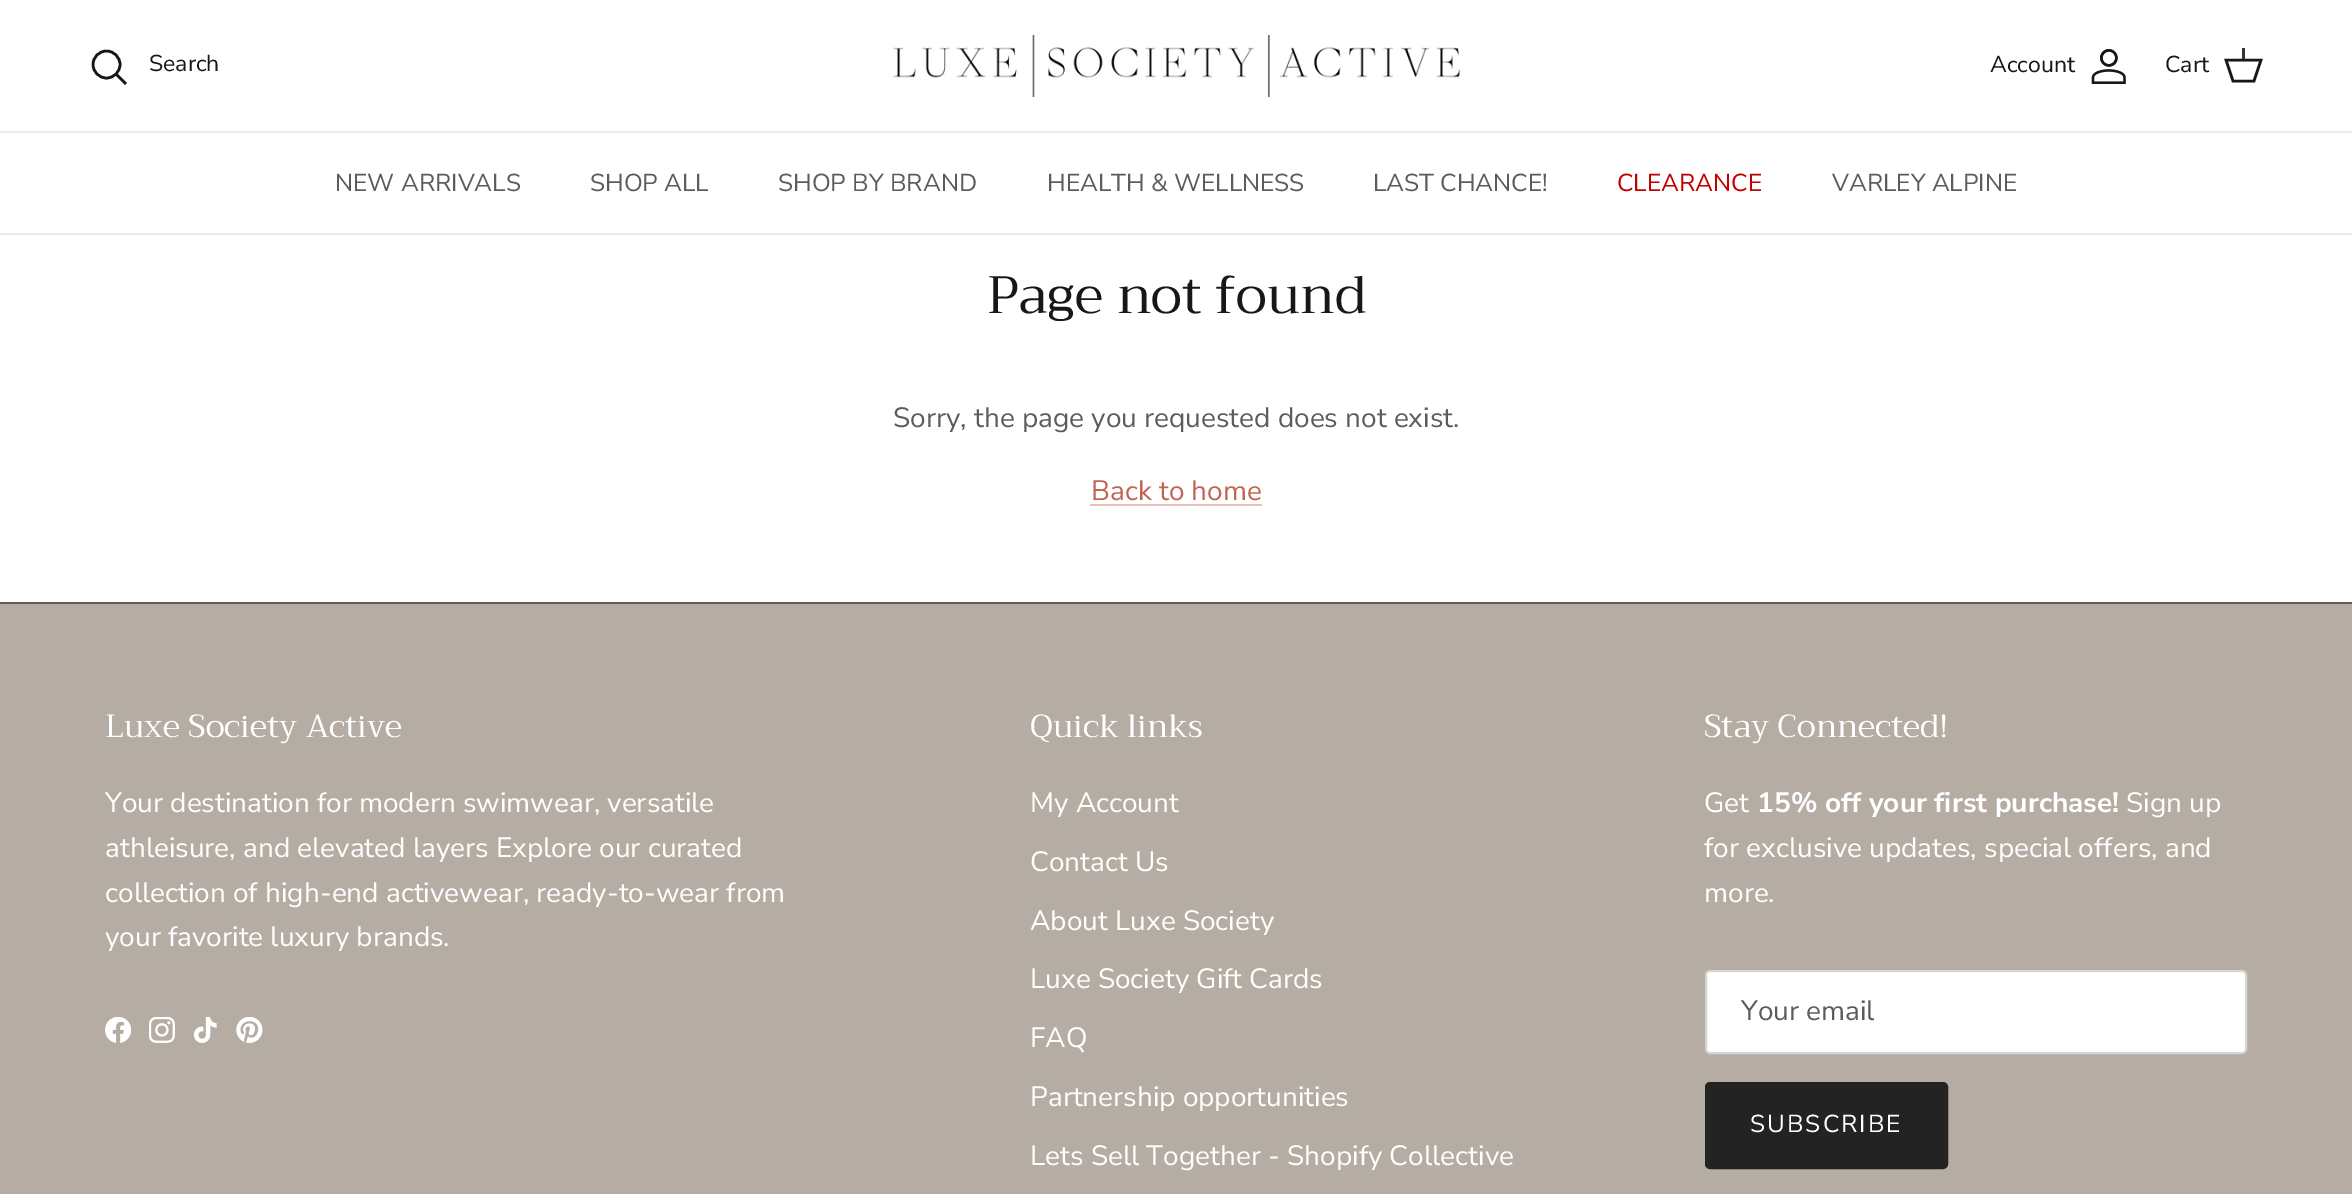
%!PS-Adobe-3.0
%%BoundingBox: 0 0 2352 1194
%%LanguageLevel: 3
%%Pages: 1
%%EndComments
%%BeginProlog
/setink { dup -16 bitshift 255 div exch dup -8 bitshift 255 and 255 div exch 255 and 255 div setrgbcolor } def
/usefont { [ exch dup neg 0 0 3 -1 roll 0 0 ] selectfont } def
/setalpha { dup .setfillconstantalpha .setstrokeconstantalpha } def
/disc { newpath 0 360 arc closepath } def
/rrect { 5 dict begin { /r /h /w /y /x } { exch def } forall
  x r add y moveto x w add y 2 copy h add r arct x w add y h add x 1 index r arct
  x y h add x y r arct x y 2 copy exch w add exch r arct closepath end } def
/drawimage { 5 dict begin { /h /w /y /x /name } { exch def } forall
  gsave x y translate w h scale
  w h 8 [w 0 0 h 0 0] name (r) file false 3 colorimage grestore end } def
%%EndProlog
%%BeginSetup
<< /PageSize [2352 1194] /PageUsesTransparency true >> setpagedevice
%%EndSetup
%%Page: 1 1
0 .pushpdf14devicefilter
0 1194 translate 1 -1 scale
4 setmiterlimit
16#FFFFFF setink
0 0 2352 1194 rectfill
16#ECEAE8 setink
0 131 2352 2 rectfill
16#171717 setink
2.6 setlinewidth
106.5 64.5 13.5 disc stroke
/NunitoSans-Regular 23 usefont
149 71 moveto (Search) show
2 setlinecap
117 75 moveto 125 83 lineto stroke
(img1.raw) 893 35 568 62 drawimage
1990 72 moveto (Account) show
(img2.raw) 2091 49 35 35 drawimage
2165 72 moveto (Cart) show
0 setlinecap
2226 60 moveto 2261 60 lineto 2254 81 lineto 2233 81 lineto closepath stroke
0.87 setalpha
2242 48 3 13 rectfill
1 setalpha
16#ECEAE8 setink
0 233 2352 2 rectfill
/NunitoSans-Regular 24.5 usefont
16#5C5C5C setink
[
    [(NEW ARRIVALS) 335 191]
    [(SHOP ALL) 590 191]
    [(SHOP BY BRAND) 778 191]
    [(HEALTH & WELLNESS) 1047 191]
    [(LAST CHANCE!) 1373 191]
] { aload pop moveto show } forall
16#C20000 setink
1617 191 moveto (CLEARANCE) show
16#5C5C5C setink
1832 191 moveto (VARLEY ALPINE) show
/Trirong-Regular 52.5 usefont
16#171717 setink
987 313 moveto (Page not found) show
/NunitoSans-Regular 28 usefont
16#5C5C5C setink
893 427 moveto (Sorry, the page you requested does not exist.) show
16#C16452 setink
1091 500 moveto (Back to home) show
[
    [1090 504 172 2 16#E6C1BA]
    [0 604 2352 590 16#B5ACA3]
    [0 602 2352 2 16#5C5C5C]
] { aload pop setink rectfill } forall
/Trirong-Regular 32 usefont
16#FFFFFF setink
105 737 moveto (Luxe Society Active) show
/NunitoSans-Regular 28 usefont
[
    [(Your destination for modern swimwear, versatile) 105 812]
    [(athleisure, and elevated layers Explore our curated) 105 857]
    [(collection of high-end activewear, ready-to-wear from) 105 902]
    [(your favorite luxury brands.) 105 946]
] { aload pop moveto show } forall
(img3.raw) 105 1017 26 26 drawimage
(img4.raw) 149 1017 26 26 drawimage
(img5.raw) 193 1017 24 26 drawimage
(img6.raw) 236 1017 27 26 drawimage
/Trirong-Regular 32 usefont
1030 737 moveto (Quick links) show
/NunitoSans-Regular 28 usefont
[
    [(My Account) 1030 812]
    [(Contact Us) 1030 871]
    [(About Luxe Society) 1030 930]
    [(Luxe Society Gift Cards) 1030 988]
    [(FAQ) 1030 1047]
    [(Partnership opportunities) 1030 1106]
    [(Lets Sell Together - Shopify Collective) 1030 1165]
] { aload pop moveto show } forall
/Trirong-Regular 32 usefont
1704 737 moveto (Stay Connected!) show
/NunitoSans-Regular 28 usefont
1704 812 moveto (Get) show
/NunitoSans-Bold 28 usefont
1757 812 moveto (15% off your first purchase!) show
/NunitoSans-Regular 28 usefont
[
    [(Sign up) 2126 812]
    [(for exclusive updates, special offers, and) 1704 857]
    [(more.) 1704 902]
] { aload pop moveto show } forall
1706 971 540 82 4 rrect gsave fill grestore
16#D6D6D6 setink
2 setlinewidth
stroke
16#5C5C5C setink
1741 1020 moveto (Your email) show
16#232323 setink
1706 1083 241 85 4 rrect gsave fill grestore
stroke
/NunitoSans-Regular 24.5 usefont
16#FFFFFF setink
1750 1132 moveto 2 0 (SUBSCRIBE) ashow
.poppdf14devicefilter showpage
%%EOF
